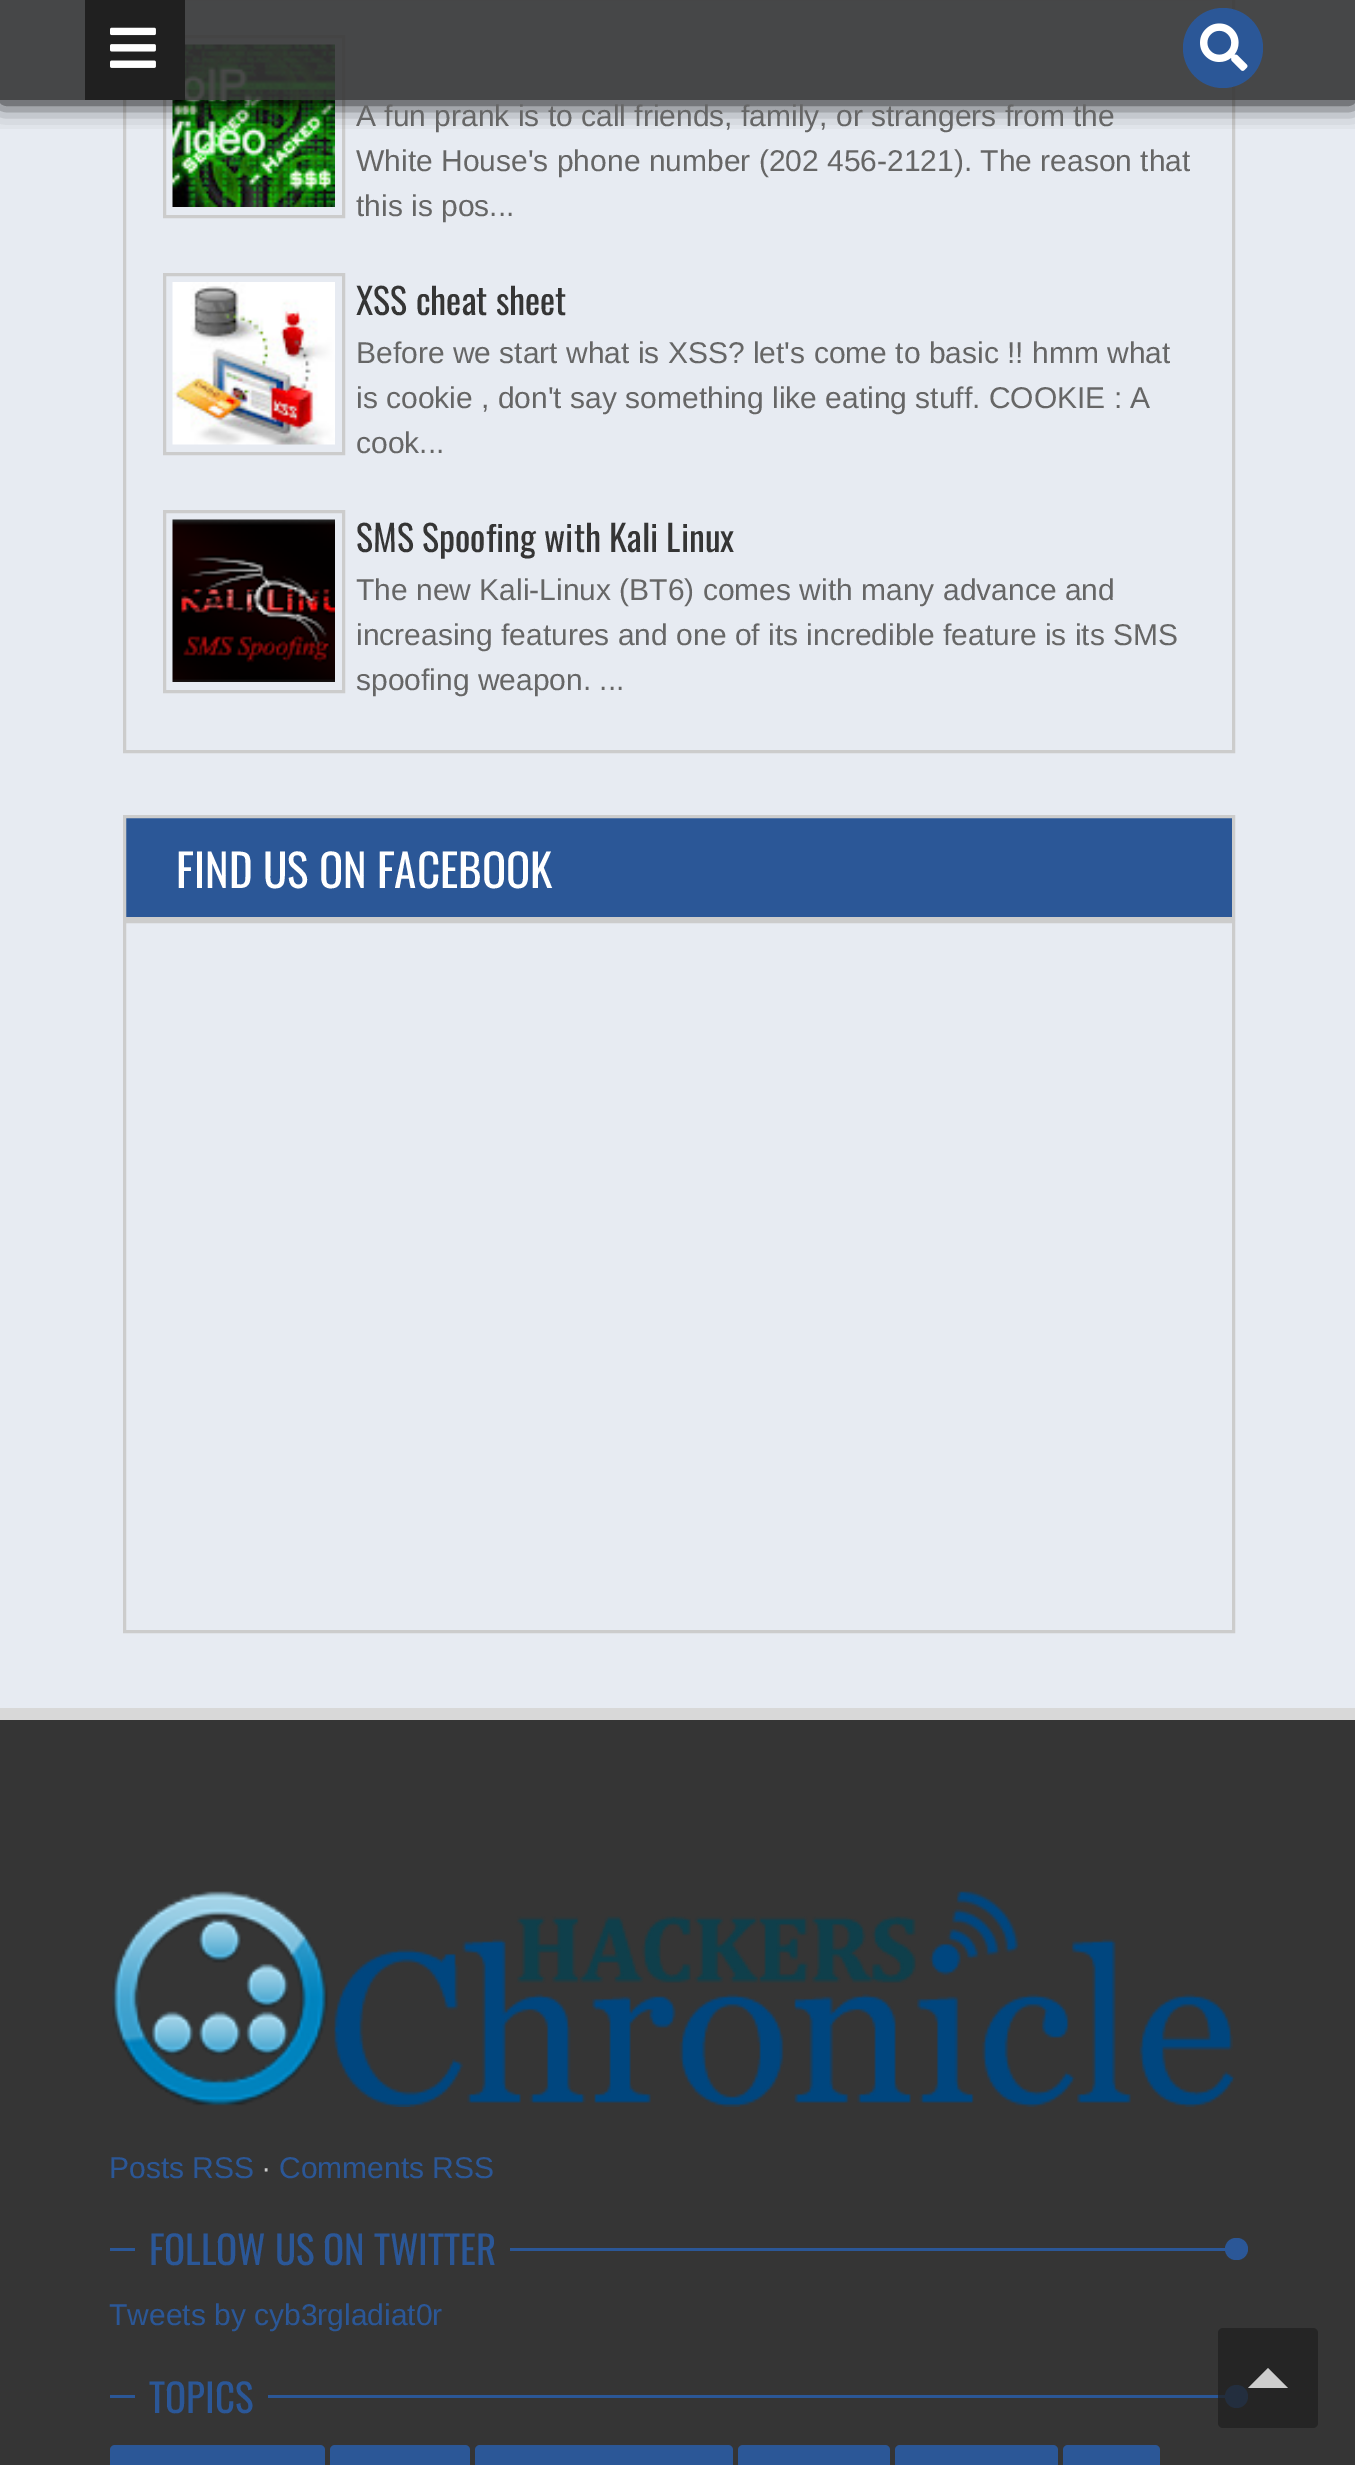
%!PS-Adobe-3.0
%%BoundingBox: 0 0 1355 2465
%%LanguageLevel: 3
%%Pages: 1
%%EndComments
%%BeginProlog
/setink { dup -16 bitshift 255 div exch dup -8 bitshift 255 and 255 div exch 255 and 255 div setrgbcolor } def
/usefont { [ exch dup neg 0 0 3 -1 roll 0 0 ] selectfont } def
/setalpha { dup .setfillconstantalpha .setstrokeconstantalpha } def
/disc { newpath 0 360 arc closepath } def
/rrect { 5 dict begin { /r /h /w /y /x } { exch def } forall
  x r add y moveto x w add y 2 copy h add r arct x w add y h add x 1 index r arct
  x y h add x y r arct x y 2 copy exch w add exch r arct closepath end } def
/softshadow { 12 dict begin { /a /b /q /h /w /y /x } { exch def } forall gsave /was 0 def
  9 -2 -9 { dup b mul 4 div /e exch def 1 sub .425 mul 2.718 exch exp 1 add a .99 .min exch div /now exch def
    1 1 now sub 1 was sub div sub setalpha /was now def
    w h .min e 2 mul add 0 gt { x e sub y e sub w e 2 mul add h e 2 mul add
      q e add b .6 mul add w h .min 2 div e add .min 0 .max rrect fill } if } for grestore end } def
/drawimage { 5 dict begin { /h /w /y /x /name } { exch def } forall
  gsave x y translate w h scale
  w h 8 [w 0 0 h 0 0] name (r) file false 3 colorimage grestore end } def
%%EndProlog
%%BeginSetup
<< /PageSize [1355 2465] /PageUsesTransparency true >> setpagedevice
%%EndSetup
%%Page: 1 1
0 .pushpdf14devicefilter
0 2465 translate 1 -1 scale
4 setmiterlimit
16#E7EBF2 setink
0 0 1355 2465 rectfill
16#CCCCCC setink
3 setlinewidth
124.5 -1.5 1109 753 rectstroke
164.5 36.5 179 180 rectstroke
(img3.raw) 172 44 163 163 drawimage
gsave
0 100 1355 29 rectclip
16#000000 setink
0 3 1355 100 0 12.5 1 softshadow
grestore
0.9 setalpha
16#353535 setink
0 0 1355 100 rectfill
1 setalpha
16#202020 setink
85 0 100 100 rectfill
(img1.raw) 110 27 46 41 drawimage
16#2B5797 setink
1223 48 40 disc fill
(img2.raw) 1200 23 48 48 drawimage
/LiberationSans-Regular 30 usefont
16#666666 setink
[
    [(A fun prank is to call friends, family, or strangers from the) 356 126]
    [(White House's phone number \(202 456-2121\). The reason that) 356 171]
    [(this is pos...) 356 216]
] { aload pop moveto show } forall
16#CCCCCC setink
164.5 274.5 179 179 rectstroke
(img4.raw) 172 282 163 163 drawimage
/Oswald-Regular 36 usefont
16#353535 setink
356 315 moveto (XSS cheat sheet) show
/LiberationSans-Regular 30 usefont
16#666666 setink
[
    [(Before we start what is XSS? let's come to basic !! hmm what) 356 363]
    [(is cookie , don't say something like eating stuff. COOKIE : A) 356 408]
    [(cook...) 356 453]
] { aload pop moveto show } forall
16#CCCCCC setink
164.5 511.5 179 180 rectstroke
(img5.raw) 172 519 163 163 drawimage
/Oswald-Regular 36 usefont
16#353535 setink
356 552 moveto (SMS Spoofing with Kali Linux) show
/LiberationSans-Regular 30 usefont
16#666666 setink
[
    [(The new Kali-Linux \(BT6\) comes with many advance and) 356 600]
    [(increasing features and one of its incredible feature is its SMS) 356 645]
    [(spoofing weapon. ...) 356 690]
] { aload pop moveto show } forall
16#2B5797 setink
124.5 816.5 moveto 1233.5 816.5 lineto 1233.5 918.5 lineto 124.5 918.5 lineto closepath gsave fill grestore
16#CCCCCC setink
stroke
/Oswald-Regular 45 usefont
16#FFFFFF setink
176 888 moveto (FIND US ON FACEBOOK) show
16#CCCCCC setink
124.5 921.5 1109 710 rectstroke
16#D8D8D8 setink
0 1708 1355 12 rectfill
16#353535 setink
0 1720 1355 745 rectfill
(img6.raw) 112 1891 1123 216 drawimage
/LiberationSans-Regular 30 usefont
16#2B5797 setink
109 2178 moveto (Posts RSS) show
16#CCCCCC setink
262 2178 moveto (∙) show
16#2B5797 setink
279 2178 moveto (Comments RSS) show
110 2248 1138 3 rectfill
16#353535 setink
135 2248 375 3 rectfill
/Oswald-Regular 39 usefont
16#2B5797 setink
149 2265 moveto (FOLLOW US ON TWITTER) show
1225 2238 23 22 11 rrect fill
/LiberationSans-Regular 30 usefont
109 2325 moveto (Tweets by cyb3rgladiat0r) show
110 2395 1138 3 rectfill
16#353535 setink
135 2395 133 3 rectfill
/Oswald-Regular 39 usefont
16#2B5797 setink
149 2413 moveto (TOPICS) show
1236.5 2396.5 11.5 disc fill
110 2445 215 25 5 rrect fill
330 2445 140 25 5 rrect fill
475 2445 258 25 5 rrect fill
738 2445 152 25 5 rrect fill
895 2445 163 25 5 rrect fill
1063 2445 97 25 5 rrect fill
0.75 setalpha
16#202020 setink
1218 2328 100 100 5 rrect fill
1 setalpha
16#CDCDCD setink
1288 2388 moveto 1248 2388 lineto 1268 2368 lineto closepath fill
.poppdf14devicefilter showpage
%%EOF
